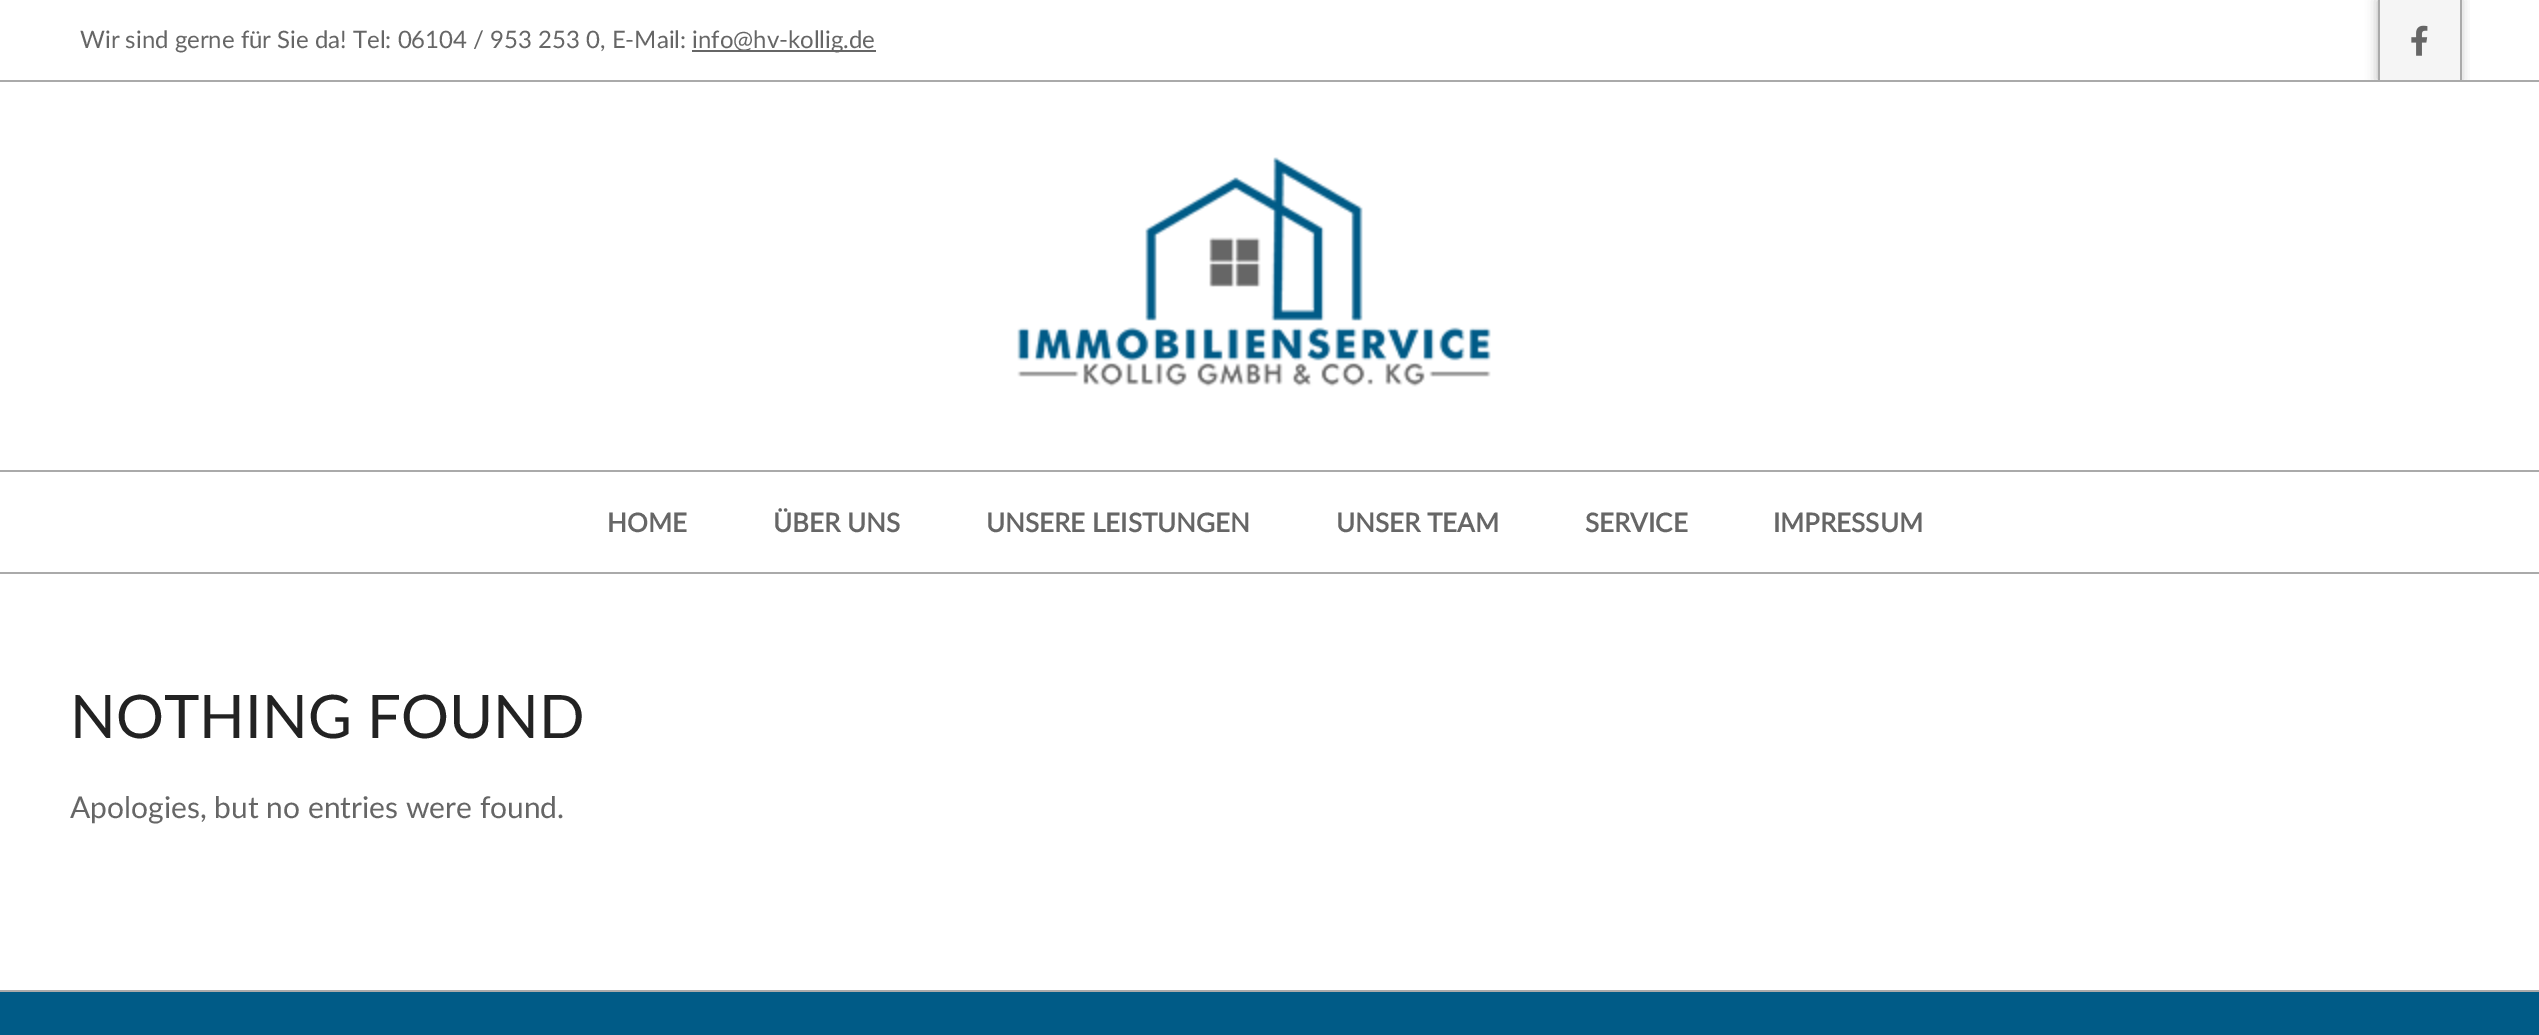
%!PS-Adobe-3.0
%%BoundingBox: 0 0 2539 1035
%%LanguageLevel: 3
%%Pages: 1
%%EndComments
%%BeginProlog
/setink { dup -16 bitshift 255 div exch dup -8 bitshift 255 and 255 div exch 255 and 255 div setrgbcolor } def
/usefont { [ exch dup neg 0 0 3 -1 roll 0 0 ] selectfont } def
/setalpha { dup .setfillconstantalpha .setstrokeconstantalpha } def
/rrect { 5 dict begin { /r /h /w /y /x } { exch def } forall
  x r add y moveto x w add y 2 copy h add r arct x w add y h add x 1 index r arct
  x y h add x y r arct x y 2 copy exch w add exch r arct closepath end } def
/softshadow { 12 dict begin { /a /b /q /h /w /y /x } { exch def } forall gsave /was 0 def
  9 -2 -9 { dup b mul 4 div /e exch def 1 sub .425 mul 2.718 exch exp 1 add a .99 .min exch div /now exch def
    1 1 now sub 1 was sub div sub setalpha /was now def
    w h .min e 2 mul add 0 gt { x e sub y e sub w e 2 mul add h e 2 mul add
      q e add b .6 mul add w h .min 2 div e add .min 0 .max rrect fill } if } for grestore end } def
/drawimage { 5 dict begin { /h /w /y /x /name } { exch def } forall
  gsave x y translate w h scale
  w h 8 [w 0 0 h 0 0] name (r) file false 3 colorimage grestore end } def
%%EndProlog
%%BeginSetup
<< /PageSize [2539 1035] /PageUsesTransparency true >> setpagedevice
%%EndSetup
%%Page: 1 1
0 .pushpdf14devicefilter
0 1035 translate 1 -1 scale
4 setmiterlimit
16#FFFFFF setink
0 0 2539 1035 rectfill
16#AAAAAA setink
0 80 2539 2 rectfill
/Lato-Regular 24 usefont
16#666666 setink
80 48 moveto (Wir sind gerne für Sie da! Tel: 06104 / 953 253 0, E-Mail:) show
692 50 184 2 rectfill
692 48 moveto (info@hv-kollig.de) show
gsave
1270 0 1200 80 rectclip
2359 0 moveto 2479 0 lineto 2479 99 lineto 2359 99 lineto closepath 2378 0 moveto 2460 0 lineto 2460 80 lineto 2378 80 lineto closepath eoclip newpath
16#000000 setink
2378 0 82 80 0 6 0.3 softshadow
grestore
0.04 setalpha
[
    [2380 0 80 80 16#000000]
] { aload pop setink rectfill } forall
1 setalpha
[
    [2460 0 2 80 16#AAAAAA]
    [2378 0 2 80 16#AAAAAA]
] { aload pop setink rectfill } forall
(img1.raw) 2411 25 17 31 drawimage
0 470 2539 2 rectfill
(img2.raw) 1017 157 474 230 drawimage
0 572 2539 2 rectfill
/Lato-Bold 26 usefont
16#666666 setink
[
    [(HOME) 607 532]
    [(ÜBER UNS) 773 532]
    [(UNSERE LEISTUNGEN) 986 532]
    [(UNSER TEAM) 1336 532]
    [(SERVICE) 1585 532]
    [(IMPRESSUM) 1773 532]
] { aload pop moveto show } forall
/Lato-Regular 60 usefont
16#222222 setink
70 738 moveto (NOTHING FOUND) show
/Lato-Regular 30 usefont
16#666666 setink
70 818 moveto (Apologies, but no entries were found.) show
16#005B87 setink
0 992 2539 43 rectfill
16#AAAAAA setink
0 990 2539 2 rectfill
.poppdf14devicefilter showpage
%%EOF
